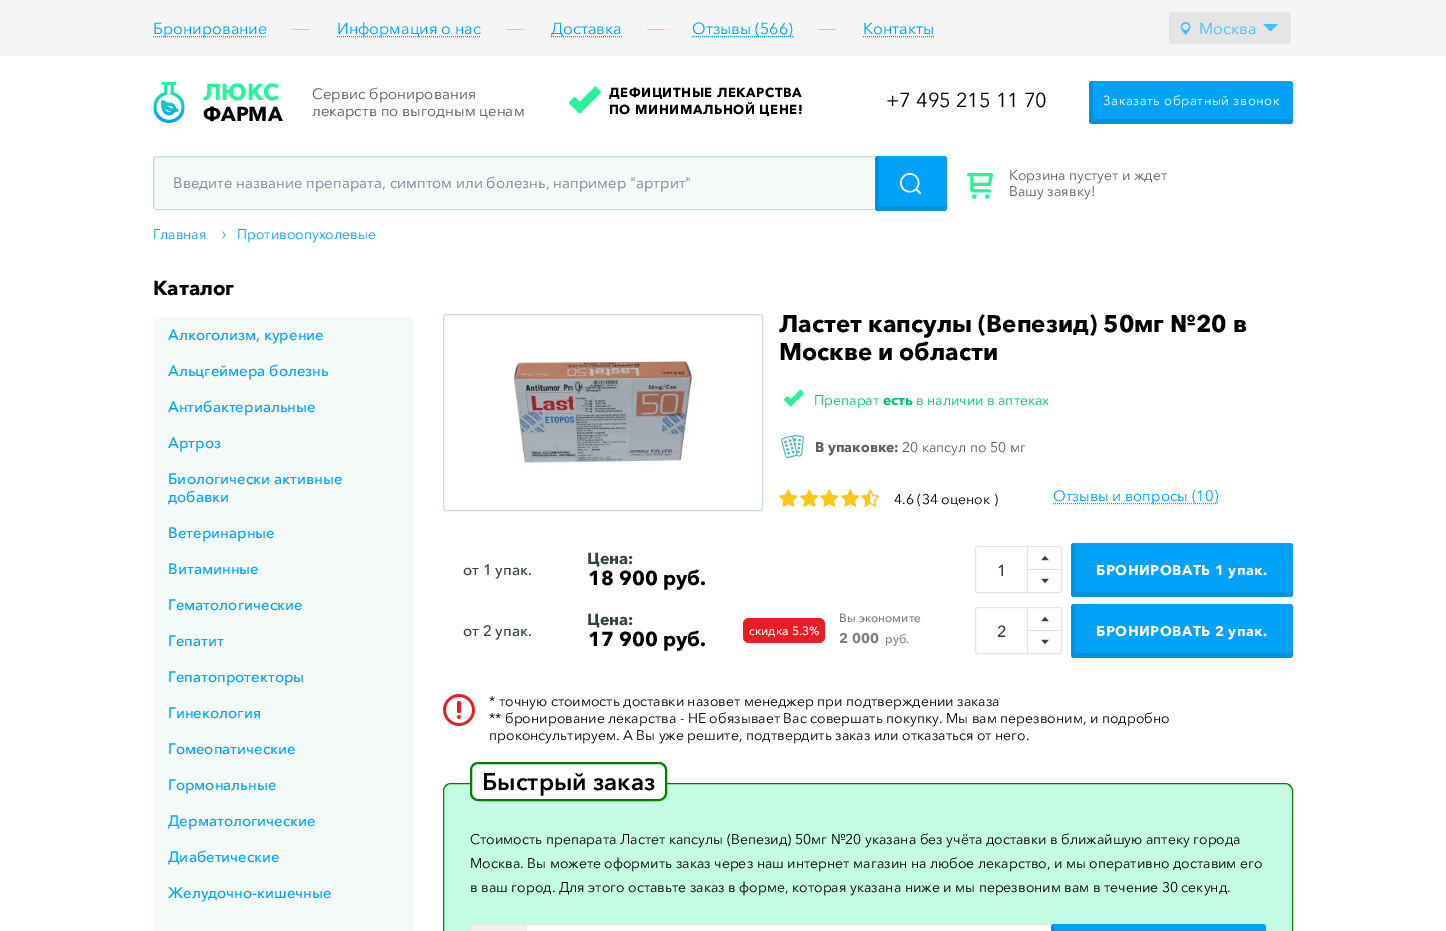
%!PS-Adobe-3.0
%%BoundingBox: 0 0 1446 931
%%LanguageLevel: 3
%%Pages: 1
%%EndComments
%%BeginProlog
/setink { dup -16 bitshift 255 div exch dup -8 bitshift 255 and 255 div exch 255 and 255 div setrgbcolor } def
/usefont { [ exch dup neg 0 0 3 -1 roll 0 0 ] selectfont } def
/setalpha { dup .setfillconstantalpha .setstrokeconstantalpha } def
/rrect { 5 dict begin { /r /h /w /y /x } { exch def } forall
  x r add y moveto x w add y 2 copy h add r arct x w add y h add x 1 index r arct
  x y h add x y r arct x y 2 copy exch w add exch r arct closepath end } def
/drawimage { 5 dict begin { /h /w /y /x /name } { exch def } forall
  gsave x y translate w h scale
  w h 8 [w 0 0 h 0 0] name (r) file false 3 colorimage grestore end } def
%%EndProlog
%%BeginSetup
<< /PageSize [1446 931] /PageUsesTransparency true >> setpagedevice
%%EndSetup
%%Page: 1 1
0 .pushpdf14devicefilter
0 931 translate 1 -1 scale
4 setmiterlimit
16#F5F5F5 setink
0 0 1446 931 rectfill
16#02A2F8 setink
[1 1] 0 setdash
153 36.5 moveto 267 36.5 lineto stroke
/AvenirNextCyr-Regular 16 usefont
153 34 moveto (Бронирование) show
16#A1DAE9 setink
292 29 18 1 rectfill
16#02A2F8 setink
337 36.5 moveto 481 36.5 lineto stroke
337 34 moveto (Информация о нас) show
16#A1DAE9 setink
506 29 18 1 rectfill
16#02A2F8 setink
551 36.5 moveto 622 36.5 lineto stroke
551 34 moveto (Доставка) show
16#A1DAE9 setink
647 29 18 1 rectfill
16#02A2F8 setink
692 36.5 moveto 793 36.5 lineto stroke
692 34 moveto (Отзывы \(566\)) show
16#A1DAE9 setink
818 29 18 1 rectfill
16#02A2F8 setink
863 36.5 moveto 934 36.5 lineto stroke
863 34 moveto (Контакты) show
16#E5E5E5 setink
1169 12 122 32 3 rrect fill
(img1.raw) 1180 22 11 13 drawimage
16#42C0FB setink
1199 34 moveto (Москва) show
1263 24 moveto 1278 24 lineto 1271 31 lineto 1270 31 lineto closepath fill
16#FFFFFF setink
0 56 1446 875 rectfill
(img2.raw) 153 81 32 42 drawimage
/AvenirNextCyr-Bold 23 usefont
16#29F29B setink
203 100 moveto (ЛЮКС) show
/AvenirNextCyr-Bold 20 usefont
16#000000 setink
203 121 moveto (ФАРМА) show
/AvenirNextCyr-Regular 15 usefont
16#576062 setink
312 99 moveto (Сервис бронирования) show
312 116 moveto (лекарств по выгодным ценам) show
(img3.raw) 569 86 32 28 drawimage
/AvenirNextCyr-Bold 13 usefont
16#000000 setink
609 97 moveto 0.6 0 (ДЕФИЦИТНЫЕ ЛЕКАРСТВА) ashow
609 114 moveto 0.6 0 (ПО МИНИМАЛЬНОЙ ЦЕНЕ!) ashow
/AvenirNextCyr-Regular 20 usefont
886 107 moveto (+7 495 215 11 70) show
16#02A2F8 setink
1089 81 204 43 3 rrect fill
0.1 setalpha
16#000000 setink
1092 81 moveto 1090 81 1089 82 1089 84 curveto 1089 121 lineto 1089 123 1090 124 1092 124 curveto 1290 124 lineto 1292 124 1293 123 1293 121 curveto 1293 119 lineto 1096 119 lineto 1094 119 1093 118 1093 116 curveto 1093 81 lineto closepath fill
/AvenirNextCyr-Regular 13 usefont
1 setalpha
16#FFFFFF setink
1103 105 moveto 0.5 0 (Заказать обратный звонок) ashow
16#F3FAF8 setink
153.5 156.5 793 53 2.5 rrect gsave fill grestore
16#CAD9DD setink
[] 0 setdash
stroke
/AvenirNextCyr-Regular 15 usefont
16#748694 setink
173 188 moveto (Введите название препарата, симптом или болезнь, например "артрит") show
16#02A2F8 setink
875 156 72 55 3 rrect fill
0.1 setalpha
16#000000 setink
878 156 moveto 876 156 875 157 875 159 curveto 875 208 lineto 875 210 876 211 878 211 curveto 944 211 lineto 946 211 947 210 947 208 curveto 947 206 lineto 882 206 lineto 880 206 879 205 879 203 curveto 879 156 lineto closepath fill
1 setalpha
(img4.raw) 900 173 21 21 drawimage
(img5.raw) 967 173 26 26 drawimage
/AvenirNextCyr-Regular 14 usefont
16#576062 setink
1009 180 moveto (Корзина пустует и ждет) show
1009 196 moveto (Вашу заявку!) show
16#02A2F8 setink
153 239 moveto (Главная) show
(img6.raw) 222 231 4 8 drawimage
237 239 moveto (Противоопухолевые) show
/AvenirNextCyr-Bold 20 usefont
16#000000 setink
153 295 moveto (Каталог) show
16#F3FAF8 setink
153 317 260 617 3 rrect fill
/AvenirNextCyr-Medium 15 usefont
16#02A2F8 setink
[
    [(Алкоголизм, курение) 168 340]
    [(Альцгеймера болезнь) 168 376]
    [(Антибактериальные) 168 412]
    [(Артроз) 168 448]
    [(Биологически активные) 168 484]
    [(добавки) 168 502]
    [(Ветеринарные) 168 538]
    [(Витаминные) 168 574]
    [(Гематологические) 168 610]
    [(Гепатит) 168 646]
    [(Гепатопротекторы) 168 682]
    [(Гинекология) 168 718]
    [(Гомеопатические) 168 754]
    [(Гормональные) 168 790]
    [(Дерматологические) 168 826]
    [(Диабетические) 168 862]
    [(Желудочно-кишечные) 168 898]
] { aload pop moveto show } forall
16#CAD9DD setink
443.5 314.5 319 196 2.5 rrect stroke
(img7.raw) 512 359 181 106 drawimage
/AvenirNextCyr-Bold 24 usefont
16#000000 setink
779 332 moveto (Ластет капсулы \(Вепезид\) 50мг №20 в) show
779 360 moveto (Москве и области) show
(img8.raw) 784 389 20 18 drawimage
/AvenirNextCyr-Regular 14 usefont
16#01C26E setink
814 405 moveto (Препарат) show
/AvenirNextCyr-Bold 14 usefont
883 405 moveto (есть) show
/AvenirNextCyr-Regular 14 usefont
916 405 moveto (в наличии в аптеках) show
(img9.raw) 781 435 23 23 drawimage
/AvenirNextCyr-Bold 14 usefont
16#576062 setink
815 452 moveto (В упаковке:) show
/AvenirNextCyr-Regular 14 usefont
902 452 moveto (20 капсул по 50 мг) show
(img10.raw) 779 489 19 18 drawimage
(img10.raw) 800 489 19 18 drawimage
(img10.raw) 820 489 19 18 drawimage
(img10.raw) 841 489 19 18 drawimage
(img11.raw) 861 489 19 18 drawimage
16#000000 setink
894 504 moveto (4.6 \(34 оценок \)) show
16#02A2F8 setink
[1 1] 0 setdash
1053 503.5 moveto 1218 503.5 lineto stroke
/AvenirNextCyr-Regular 15 usefont
1053 501 moveto (Отзывы и вопросы \(10\)) show
/AvenirNextCyr-Medium 15 usefont
16#344147 setink
463 575 moveto (от 1 упак.) show
/AvenirNextCyr-Bold 16 usefont
587 564 moveto (Цена:) show
/AvenirNextCyr-Bold 20 usefont
16#000000 setink
588 585 moveto (18 900 руб.) show
16#E2E3E3 setink
[] 0 setdash
975.5 546.5 86 46 2.5 rrect stroke
/AvenirNextCyr-Medium 16 usefont
16#344147 setink
997 576 moveto (1) show
16#E2E3E3 setink
1027 547 1 45 rectfill
(img12.raw) 1041 555 8 6 drawimage
1028 569 33 1 rectfill
(img13.raw) 1041 578 8 6 drawimage
16#02A2F8 setink
1071 543 222 54 3 rrect fill
0.1 setalpha
16#000000 setink
1074 543 moveto 1072 543 1071 544 1071 546 curveto 1071 594 lineto 1071 596 1072 597 1074 597 curveto 1290 597 lineto 1292 597 1293 596 1293 594 curveto 1293 592 lineto 1078 592 lineto 1076 592 1075 591 1075 589 curveto 1075 543 lineto closepath fill
/AvenirNextCyr-Bold 14 usefont
1 setalpha
16#FFFFFF setink
1096 575 moveto 0.5 0 (БРОНИРОВАТЬ 1 упак.) ashow
/AvenirNextCyr-Medium 15 usefont
16#344147 setink
463 636 moveto (от 2 упак.) show
/AvenirNextCyr-Bold 16 usefont
587 625 moveto (Цена:) show
/AvenirNextCyr-Bold 20 usefont
16#000000 setink
588 646 moveto (17 900 руб.) show
16#ED1C24 setink
743 618 82 25 6 rrect fill
/AvenirNextCyr-Medium 12 usefont
16#FFFFFF setink
749 635 moveto (скидка 5.3%) show
16#808080 setink
839 622 moveto (Вы экономите) show
/AvenirNextCyr-Bold 14 usefont
839 643 moveto (2 000) show
/AvenirNextCyr-Medium 12 usefont
885 643 moveto (руб.) show
16#E2E3E3 setink
975.5 607.5 86 46 2.5 rrect stroke
/AvenirNextCyr-Medium 16 usefont
16#344147 setink
997 637 moveto (2) show
16#E2E3E3 setink
1027 608 1 45 rectfill
(img12.raw) 1041 616 8 6 drawimage
1028 630 33 1 rectfill
(img13.raw) 1041 639 8 6 drawimage
16#02A2F8 setink
1071 604 222 54 3 rrect fill
0.1 setalpha
16#000000 setink
1074 604 moveto 1072 604 1071 605 1071 607 curveto 1071 655 lineto 1071 657 1072 658 1074 658 curveto 1290 658 lineto 1292 658 1293 657 1293 655 curveto 1293 653 lineto 1078 653 lineto 1076 653 1075 652 1075 650 curveto 1075 604 lineto closepath fill
/AvenirNextCyr-Bold 14 usefont
1 setalpha
16#FFFFFF setink
1096 636 moveto 0.5 0 (БРОНИРОВАТЬ 2 упак.) ashow
(img14.raw) 443 694 32 32 drawimage
/AvenirNextCyr-Regular 14 usefont
16#000000 setink
[
    [(* точную стоимость доставки назовет менеджер при подтверждении заказа) 489 706]
    [(** бронирование лекарства - НЕ обязывает Вас совершать покупку. Мы вам перезвоним, и подробно) 489 723]
    [(проконсультируем. А Вы уже решите, подтвердить заказ или отказаться от него.) 489 740]
] { aload pop moveto show } forall
16#C3FBE3 setink
443.5 783.5 849 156 7.5 rrect gsave fill grestore
16#008000 setink
stroke
16#FFFFFF setink
471 763 195 37 7 rrect gsave fill grestore
16#008000 setink
2 setlinewidth
stroke
/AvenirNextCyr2-Bold 24 usefont
16#000000 setink
482 790 moveto (Быстрый заказ) show
/AvenirNextCyr-Regular 14 usefont
[
    [(Стоимость препарата Ластет капсулы \(Вепезид\) 50мг №20 указана без учёта доставки в ближайшую аптеку города) 470 844]
    [(Москва. Вы можете оформить заказ через наш интернет магазин на любое лекарство, и мы оперативно доставим его) 470 868]
    [(в ваш город. Для этого оставьте заказ в форме, которая указана ниже и мы перезвоним вам в течение 30 секунд.) 470 892]
] { aload pop moveto show } forall
16#FFFFFF setink
470.5 924.5 583 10 2.5 rrect gsave fill grestore
16#E5E6E6 setink
1 setlinewidth
stroke
16#EFEFEF setink
471 925 56 6 rectfill
16#02A2F8 setink
1051 924 215 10 3 rrect fill
0.1 setalpha
16#000000 setink
1054 924 moveto 1052 924 1051 925 1051 927 curveto 1051 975 lineto 1051 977 1052 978 1054 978 curveto 1263 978 lineto 1265 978 1266 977 1266 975 curveto 1266 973 lineto 1058 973 lineto 1056 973 1055 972 1055 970 curveto 1055 924 lineto closepath fill
.poppdf14devicefilter showpage
%%EOF
